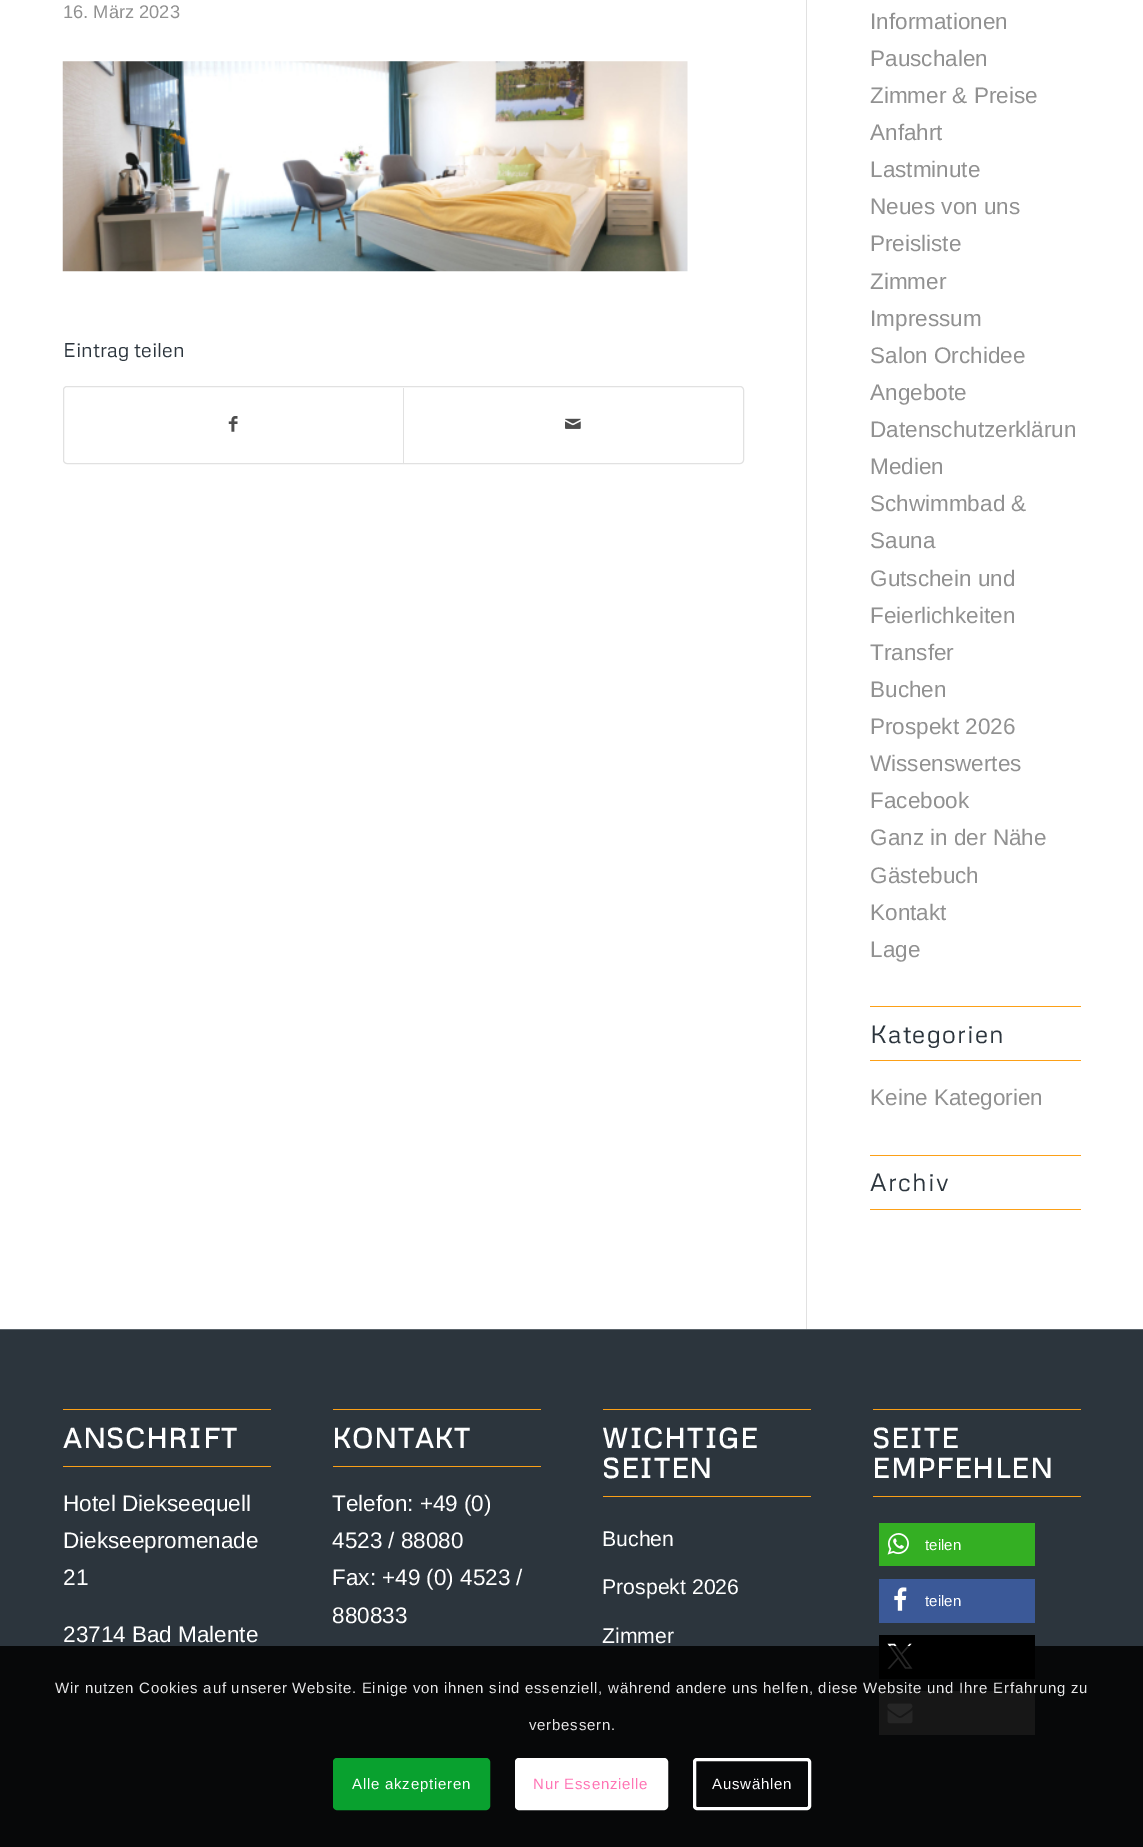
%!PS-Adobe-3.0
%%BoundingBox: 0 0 1143 1847
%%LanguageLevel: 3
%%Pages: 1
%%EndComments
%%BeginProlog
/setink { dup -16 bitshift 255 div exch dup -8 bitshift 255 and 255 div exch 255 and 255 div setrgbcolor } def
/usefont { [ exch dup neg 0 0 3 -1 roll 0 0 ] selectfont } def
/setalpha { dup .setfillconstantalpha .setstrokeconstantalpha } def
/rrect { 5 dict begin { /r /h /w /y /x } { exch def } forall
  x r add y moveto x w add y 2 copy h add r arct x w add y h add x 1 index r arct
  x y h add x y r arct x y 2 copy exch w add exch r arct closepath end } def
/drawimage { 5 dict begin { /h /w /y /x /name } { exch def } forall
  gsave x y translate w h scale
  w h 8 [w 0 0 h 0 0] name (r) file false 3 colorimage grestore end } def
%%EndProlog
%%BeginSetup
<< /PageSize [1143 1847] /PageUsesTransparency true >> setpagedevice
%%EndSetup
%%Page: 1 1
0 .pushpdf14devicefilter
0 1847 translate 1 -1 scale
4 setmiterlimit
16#FFFFFF setink
0 0 1143 1847 rectfill
/LiberationSans-Regular 18.25 usefont
16#919191 setink
63 18 moveto (16. März 2023) show
(img1.raw) 62 61 626 211 drawimage
/Metrophobic-Regular 20 usefont
16#2C353D setink
63 357 moveto (Eintrag teilen) show
16#E1E1E1 setink
63.5 386.5 680 77 3.5 rrect stroke
(img2.raw) 228 416 10 16 drawimage
403 388 1 75 rectfill
(img3.raw) 565 418 16 11 drawimage
806 0 1 1329 rectfill
/LiberationSans-Regular 22.5 usefont
16#919191 setink
[
    [(Informationen) 870 29]
    [(Pauschalen) 870 66]
    [(Zimmer & Preise) 870 103]
    [(Anfahrt) 870 140]
    [(Lastminute) 870 177]
    [(Neues von uns) 870 214]
    [(Preisliste) 870 251]
    [(Zimmer) 870 289]
    [(Impressum) 870 326]
    [(Salon Orchidee) 870 363]
    [(Angebote) 870 400]
    [(Datenschutzerklärun) 870 437]
    [(Medien) 870 474]
    [(Schwimmbad &) 870 511]
    [(Sauna) 870 548]
    [(Gutschein und) 870 586]
    [(Feierlichkeiten) 870 623]
    [(Transfer) 870 660]
    [(Buchen) 870 697]
    [(Prospekt 2026) 870 734]
    [(Wissenswertes) 870 771]
    [(Facebook) 870 808]
    [(Ganz in der Nähe) 870 845]
    [(Gästebuch) 870 883]
    [(Kontakt) 870 920]
    [(Lage) 870 957]
] { aload pop moveto show } forall
16#FCA017 setink
870 1006 211 1 rectfill
870 1060 211 1 rectfill
/Metrophobic-Regular 24.75 usefont
16#2C353D setink
870 1043 moveto 1.25 0 (Kategorien) ashow
/LiberationSans-Regular 22.5 usefont
16#919191 setink
870 1105 moveto (Keine Kategorien) show
16#FCA017 setink
870 1155 211 1 rectfill
870 1209 211 1 rectfill
/Metrophobic-Regular 24.75 usefont
16#2C353D setink
870 1191 moveto 1.25 0 (Archiv) ashow
[
    [0 1330 1143 517 16#2C353D]
    [0 1329 1143 1 16#5B646B]
    [63 1409 208 1 16#FCA017]
    [63 1466 208 1 16#FCA017]
] { aload pop setink rectfill } forall
/Metrophobic-Bold 27.5 usefont
16#FFFFFF setink
63 1448 moveto 1.25 0 (ANSCHRIFT) ashow
/LiberationSans-Regular 22.5 usefont
[
    [(Hotel Diekseequell) 63 1511]
    [(Diekseepromenade) 63 1548]
    [(21) 63 1585]
    [(23714 Bad Malente) 63 1642]
] { aload pop moveto show } forall
16#FCA017 setink
333 1409 208 1 rectfill
333 1466 208 1 rectfill
/Metrophobic-Bold 27.5 usefont
16#FFFFFF setink
332 1448 moveto 1.25 0 (KONTAKT) ashow
/LiberationSans-Regular 22.5 usefont
[
    [(Telefon: +49 \(0\)) 332 1511]
    [(4523 / 88080) 332 1548]
    [(Fax: +49 \(0\) 4523 /) 332 1585]
    [(880833) 332 1623]
] { aload pop moveto show } forall
16#FCA017 setink
603 1409 208 1 rectfill
603 1496 208 1 rectfill
/Metrophobic-Bold 27.5 usefont
16#FFFFFF setink
602 1448 moveto 1.25 0 (WICHTIGE) ashow
602 1478 moveto 1.25 0 (SEITEN) ashow
/LiberationSans-Regular 21.25 usefont
[
    [(Buchen) 602 1546]
    [(Prospekt 2026) 602 1594]
    [(Zimmer) 602 1643]
] { aload pop moveto show } forall
16#FCA017 setink
873 1409 208 1 rectfill
873 1496 208 1 rectfill
/Metrophobic-Bold 27.5 usefont
16#FFFFFF setink
872 1448 moveto 1.25 0 (SEITE) ashow
872 1478 moveto 1.25 0 (EMPFEHLEN) ashow
16#34AF23 setink
879 1523 156 43 rectfill
(img4.raw) 887 1533 22 22 drawimage
/LiberationSans-Regular 15 usefont
16#FFFFFF setink
925 1550 moveto (teilen) show
16#3B5998 setink
879 1579 156 44 rectfill
(img5.raw) 894 1587 13 24 drawimage
16#FFFFFF setink
925 1606 moveto (teilen) show
16#000000 setink
879 1635 156 44 rectfill
(img6.raw) 887 1643 26 26 drawimage
16#999999 setink
879 1691 156 44 rectfill
(img7.raw) 887 1703 26 21 drawimage
0.85 setalpha
16#000000 setink
0 1646 1143 201 rectfill
1 setalpha
16#E6E6E7 setink
55 1693 moveto 0.75 0 (Wir nutzen Cookies auf unserer Website. Einige von ihnen sind essenziell, während andere uns helfen, diese Website und Ihre Erfahrung zu) ashow
529 1730 moveto 0.75 0 (verbessern.) ashow
16#09A12F setink
334.5 1759.5 154 49 2.5 rrect gsave fill grestore
3 setlinewidth
stroke
16#FFFFFF setink
352 1789 moveto 0.75 0 (Alle akzeptieren) ashow
516.5 1759.5 150 49 2.5 rrect gsave fill grestore
stroke
16#FF75B5 setink
533 1789 moveto 0.75 0 (Nur Essenzielle) ashow
16#FFFFFF setink
694.5 1759.5 115 49 2.5 rrect stroke
712 1789 moveto 0.75 0 (Auswählen) ashow
.poppdf14devicefilter showpage
%%EOF
